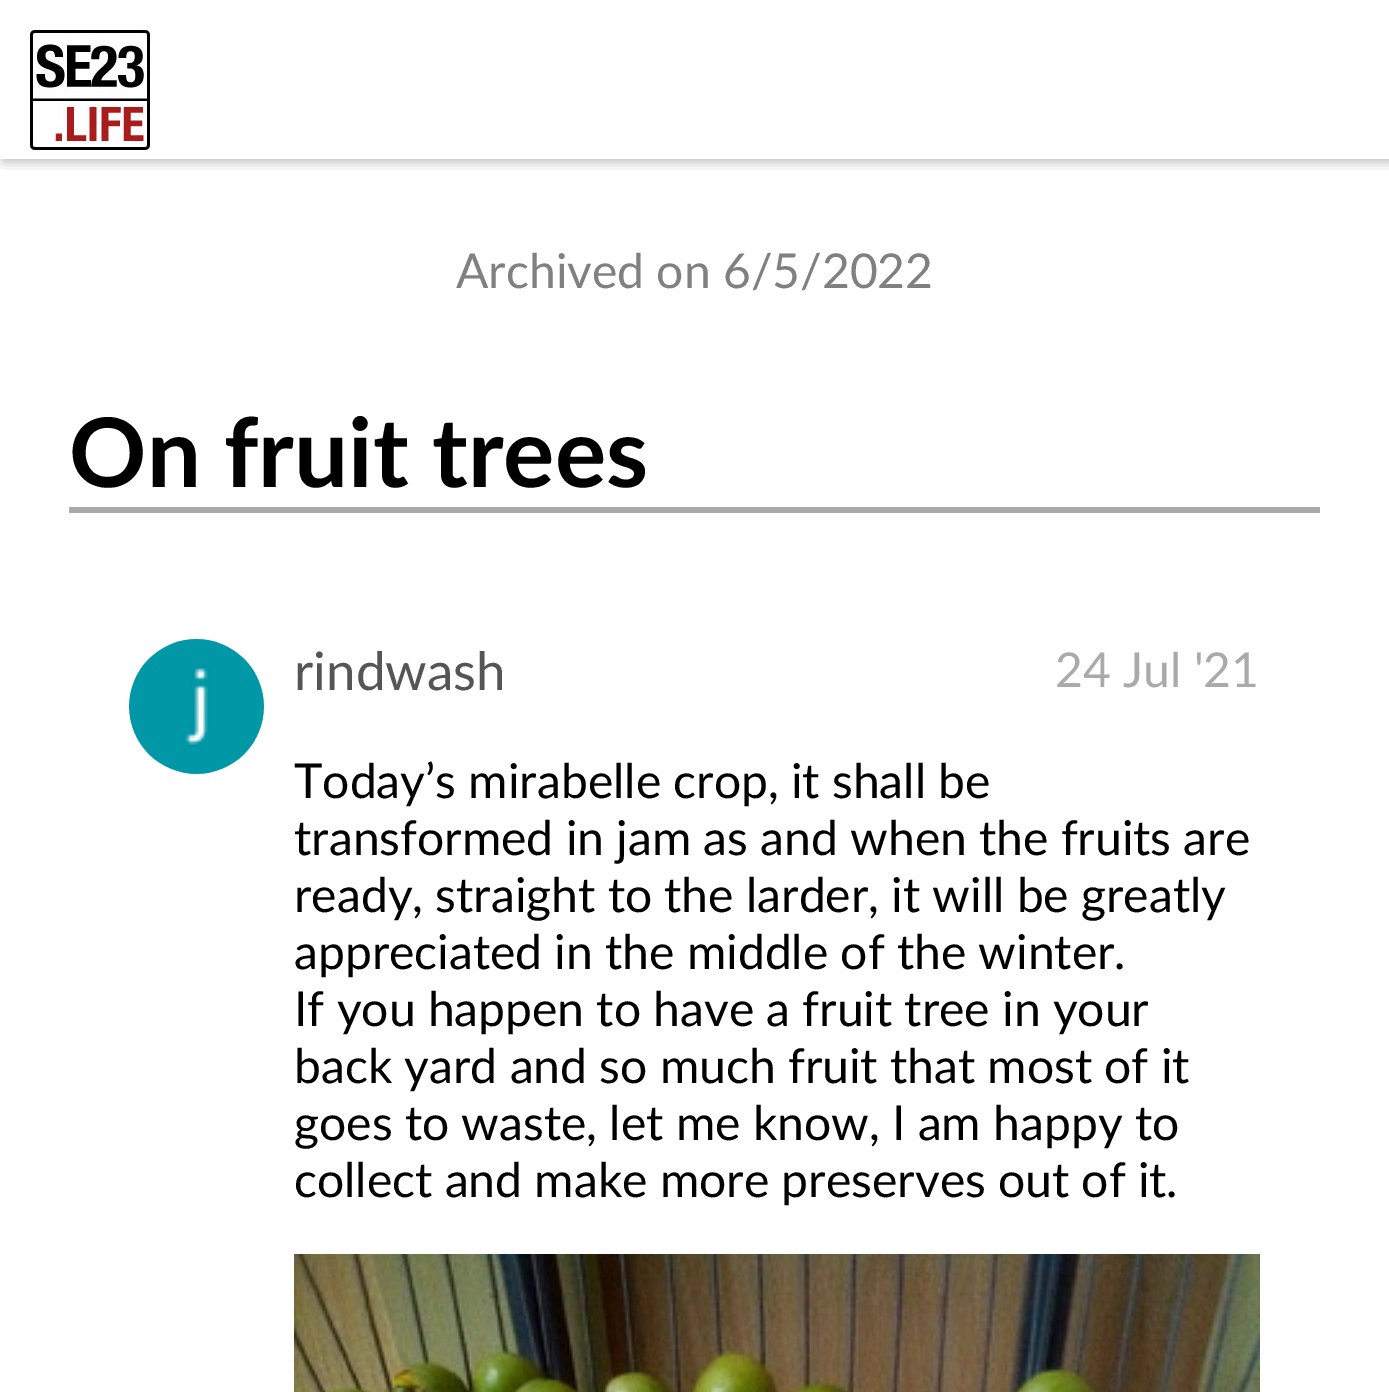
%!PS-Adobe-3.0
%%BoundingBox: 0 0 1389 1392
%%LanguageLevel: 3
%%Pages: 1
%%EndComments
%%BeginProlog
/setink { dup -16 bitshift 255 div exch dup -8 bitshift 255 and 255 div exch 255 and 255 div setrgbcolor } def
/usefont { [ exch dup neg 0 0 3 -1 roll 0 0 ] selectfont } def
/setalpha { dup .setfillconstantalpha .setstrokeconstantalpha } def
/rrect { 5 dict begin { /r /h /w /y /x } { exch def } forall
  x r add y moveto x w add y 2 copy h add r arct x w add y h add x 1 index r arct
  x y h add x y r arct x y 2 copy exch w add exch r arct closepath end } def
/softshadow { 12 dict begin { /a /b /q /h /w /y /x } { exch def } forall gsave /was 0 def
  9 -2 -9 { dup b mul 4 div /e exch def 1 sub .425 mul 2.718 exch exp 1 add a .99 .min exch div /now exch def
    1 1 now sub 1 was sub div sub setalpha /was now def
    w h .min e 2 mul add 0 gt { x e sub y e sub w e 2 mul add h e 2 mul add
      q e add b .6 mul add w h .min 2 div e add .min 0 .max rrect fill } if } for grestore end } def
/drawimage { 5 dict begin { /h /w /y /x /name } { exch def } forall
  gsave x y translate w h scale
  w h 8 [w 0 0 h 0 0] name (r) file false 3 colorimage grestore end } def
%%EndProlog
%%BeginSetup
<< /PageSize [1389 1392] /PageUsesTransparency true >> setpagedevice
%%EndSetup
%%Page: 1 1
0 .pushpdf14devicefilter
0 1392 translate 1 -1 scale
4 setmiterlimit
16#FFFFFF setink
0 0 1389 1392 rectfill
gsave
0 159 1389 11 rectclip
16#000000 setink
3 9 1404 153 0 6 0.25 softshadow
grestore
(img1.raw) 30 30 120 120 drawimage
/Lato-Regular 48 usefont
16#808080 setink
456 288 moveto (Archived on 6/5/2022) show
16#A9A9A9 setink
69 507 1251 6 rectfill
/Lato-Bold 96 usefont
16#000000 setink
69 487 moveto (On fruit trees) show
(img2.raw) 129 639 135 135 drawimage
/Lato-Regular 53 usefont
16#555555 setink
294 690 moveto (rindwash) show
/Lato-Regular 48 usefont
16#AAAAAA setink
1055 687 moveto (24 Jul '21) show
16#000000 setink
[
    [(Today’s mirabelle crop, it shall be) 294 798]
    [(transformed in jam as and when the fruits are) 294 855]
    [(ready, straight to the larder, it will be greatly) 294 912]
    [(appreciated in the middle of the winter.) 294 969]
    [(If you happen to have a fruit tree in your) 294 1026]
    [(back yard and so much fruit that most of it) 294 1083]
    [(goes to waste, let me know, I am happy to) 294 1140]
    [(collect and make more preserves out of it.) 294 1197]
] { aload pop moveto show } forall
(img3.raw) 294 1254 966 138 drawimage
.poppdf14devicefilter showpage
%%EOF
